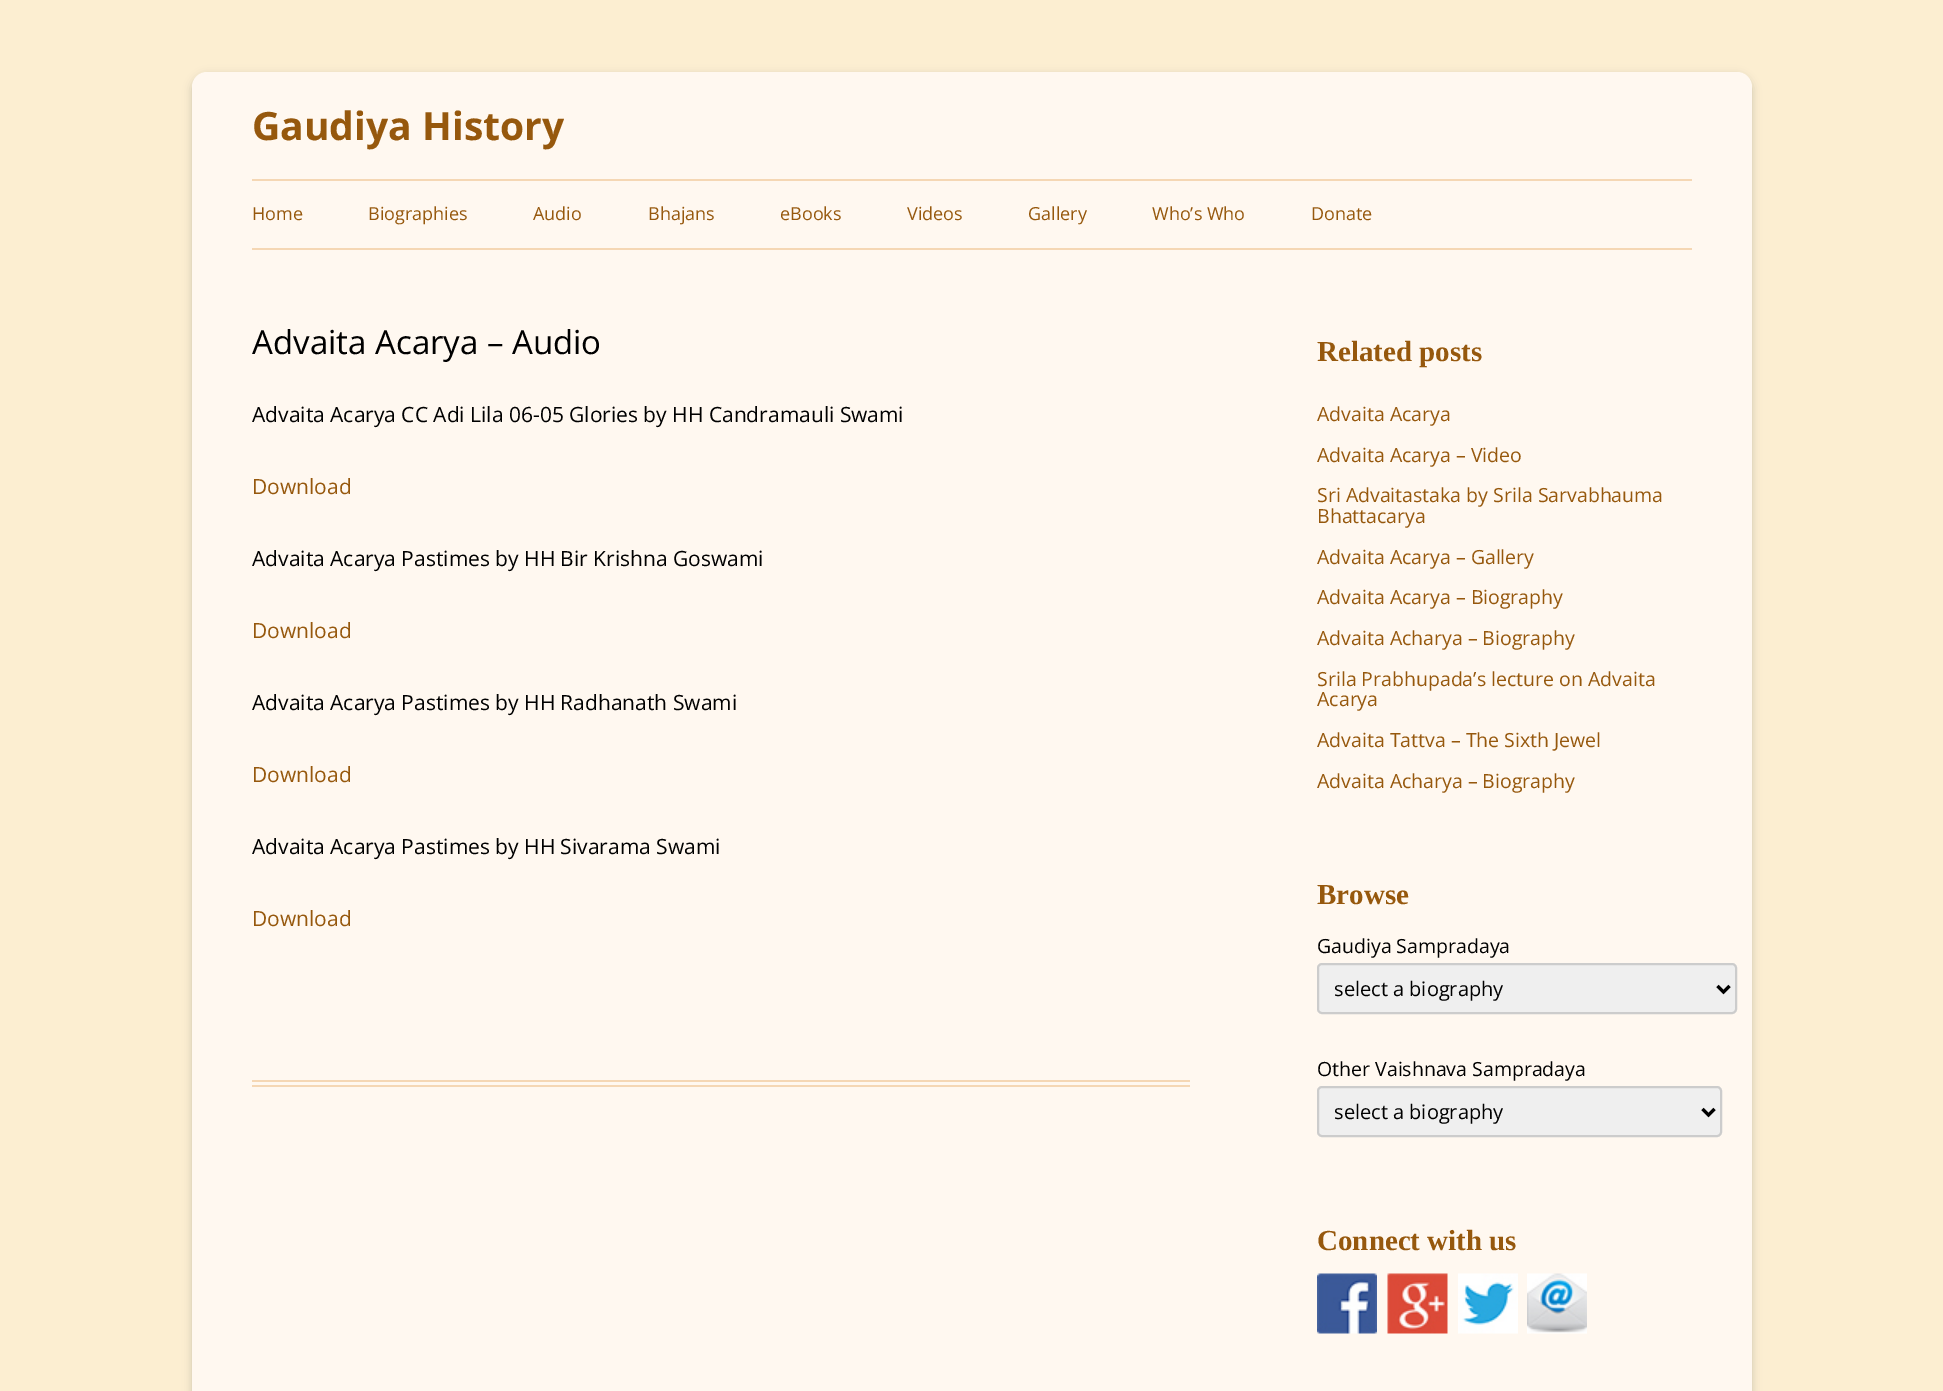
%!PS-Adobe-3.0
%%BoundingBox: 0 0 1943 1391
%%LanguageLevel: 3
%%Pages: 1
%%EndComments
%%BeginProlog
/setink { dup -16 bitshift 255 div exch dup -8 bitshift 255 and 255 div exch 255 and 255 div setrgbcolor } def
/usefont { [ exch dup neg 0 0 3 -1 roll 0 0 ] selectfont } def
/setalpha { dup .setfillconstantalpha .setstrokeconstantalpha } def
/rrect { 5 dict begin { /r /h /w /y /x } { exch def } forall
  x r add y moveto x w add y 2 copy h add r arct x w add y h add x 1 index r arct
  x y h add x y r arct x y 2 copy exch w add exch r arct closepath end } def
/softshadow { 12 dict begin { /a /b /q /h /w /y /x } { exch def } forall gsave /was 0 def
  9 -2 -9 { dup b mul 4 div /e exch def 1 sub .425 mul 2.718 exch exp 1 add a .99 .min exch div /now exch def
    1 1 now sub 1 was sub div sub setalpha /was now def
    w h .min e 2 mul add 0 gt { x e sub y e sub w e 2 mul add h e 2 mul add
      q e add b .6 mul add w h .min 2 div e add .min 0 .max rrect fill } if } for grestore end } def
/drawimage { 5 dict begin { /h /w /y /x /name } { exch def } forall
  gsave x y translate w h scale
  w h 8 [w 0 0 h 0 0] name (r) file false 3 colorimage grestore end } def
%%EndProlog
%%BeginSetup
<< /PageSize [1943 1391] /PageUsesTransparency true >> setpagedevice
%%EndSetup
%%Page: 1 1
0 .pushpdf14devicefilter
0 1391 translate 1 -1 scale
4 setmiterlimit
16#FCEED1 setink
0 0 1943 1391 rectfill
16#646464 setink
192 75 1560 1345 15 4.5 0.3 softshadow
16#FFF8F0 setink
192 72 1560 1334 15 rrect fill
/OpenSans-Bold 39 usefont
16#96580D setink
252 140 moveto (Gaudiya History) show
16#F5D7B4 setink
252 179 1440 2 rectfill
252 248 1440 2 rectfill
/OpenSans-Regular 18 usefont
16#96580D setink
[
    [(Home) 252 220]
    [(Biographies) 368 220]
    [(Audio) 533 220]
    [(Bhajans) 648 220]
    [(eBooks) 780 220]
    [(Videos) 907 220]
    [(Gallery) 1028 220]
    [(Who’s Who) 1152 220]
    [(Donate) 1311 220]
] { aload pop moveto show } forall
16#F5D7B4 setink
252 1080 938 2 rectfill
252 1085 938 2 rectfill
/OpenSans-Regular 33 usefont
16#000000 setink
252 354 moveto (Advaita Acarya – Audio) show
/OpenSans-Regular 21 usefont
252 422 moveto (Advaita Acarya CC Adi Lila 06-05 Glories by HH Candramauli Swami) show
16#96580D setink
252 494 moveto (Download) show
16#000000 setink
252 566 moveto (Advaita Acarya Pastimes by HH Bir Krishna Goswami) show
16#96580D setink
252 638 moveto (Download) show
16#000000 setink
252 710 moveto (Advaita Acarya Pastimes by HH Radhanath Swami) show
16#96580D setink
252 782 moveto (Download) show
16#000000 setink
252 854 moveto (Advaita Acarya Pastimes by HH Sivarama Swami) show
16#96580D setink
252 926 moveto (Download) show
/LiberationSerif-Bold 29 usefont
1317 361 moveto (Related posts) show
/OpenSans-Regular 19.5 usefont
[
    [(Advaita Acarya) 1317 421]
    [(Advaita Acarya – Video) 1317 462]
    [(Sri Advaitastaka by Srila Sarvabhauma) 1317 502]
    [(Bhattacarya) 1317 523]
    [(Advaita Acarya – Gallery) 1317 564]
    [(Advaita Acarya – Biography) 1317 604]
    [(Advaita Acharya – Biography) 1317 645]
    [(Srila Prabhupada’s lecture on Advaita) 1317 686]
    [(Acarya) 1317 706]
    [(Advaita Tattva – The Sixth Jewel) 1317 747]
    [(Advaita Acharya – Biography) 1317 788]
] { aload pop moveto show } forall
/LiberationSerif-Bold 29 usefont
1317 904 moveto (Browse) show
/OpenSans-Regular 19.5 usefont
16#000000 setink
1317 953 moveto (Gaudiya Sampradaya) show
16#EFEFEF setink
1318 964 418 49 4 rrect gsave fill grestore
16#CCCCCC setink
2 setlinewidth
stroke
16#000000 setink
3 setlinewidth
1717.5 986 moveto 1723.5 992 lineto 1729.5 986 lineto stroke
/OpenSans-Regular 20 usefont
1334 996 moveto (select a biography) show
/OpenSans-Regular 19.5 usefont
1317 1076 moveto (Other Vaishnava Sampradaya) show
16#EFEFEF setink
1318 1087 403 49 4 rrect gsave fill grestore
16#CCCCCC setink
2 setlinewidth
stroke
16#000000 setink
3 setlinewidth
1702.5 1109 moveto 1708.5 1115 lineto 1714.5 1109 lineto stroke
/OpenSans-Regular 20 usefont
1334 1119 moveto (select a biography) show
/LiberationSerif-Bold 29 usefont
16#96580D setink
1317 1250 moveto (Connect with us) show
(img1.raw) 1317 1273 60 61 drawimage
(img2.raw) 1387 1273 61 61 drawimage
(img3.raw) 1458 1273 60 61 drawimage
(img4.raw) 1527 1273 60 61 drawimage
.poppdf14devicefilter showpage
%%EOF
